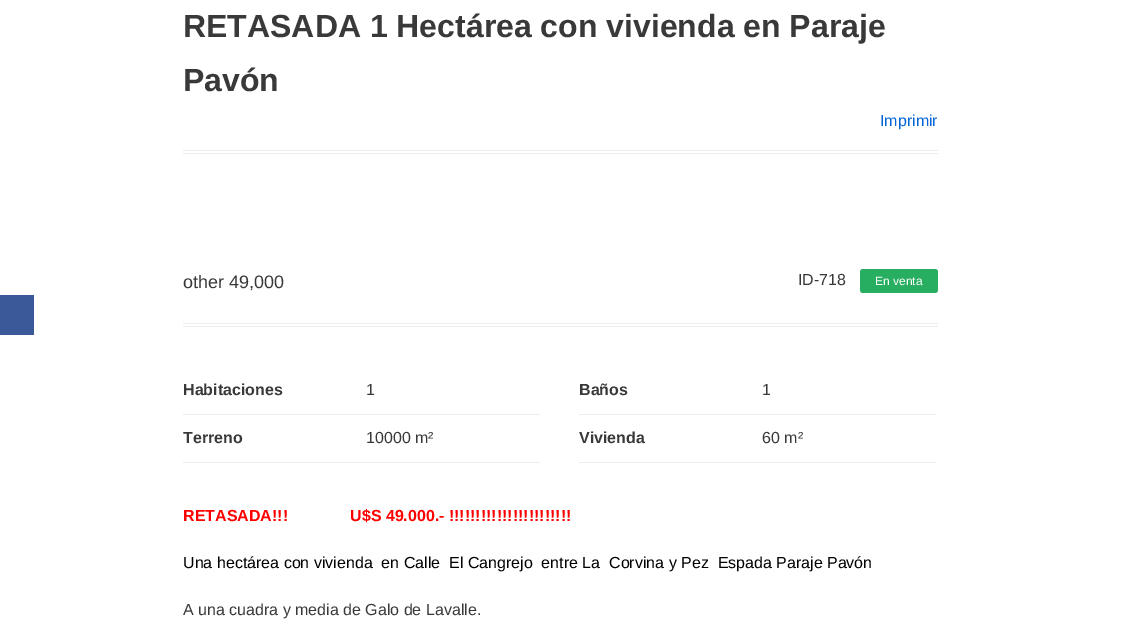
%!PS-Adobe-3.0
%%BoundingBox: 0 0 1121 630
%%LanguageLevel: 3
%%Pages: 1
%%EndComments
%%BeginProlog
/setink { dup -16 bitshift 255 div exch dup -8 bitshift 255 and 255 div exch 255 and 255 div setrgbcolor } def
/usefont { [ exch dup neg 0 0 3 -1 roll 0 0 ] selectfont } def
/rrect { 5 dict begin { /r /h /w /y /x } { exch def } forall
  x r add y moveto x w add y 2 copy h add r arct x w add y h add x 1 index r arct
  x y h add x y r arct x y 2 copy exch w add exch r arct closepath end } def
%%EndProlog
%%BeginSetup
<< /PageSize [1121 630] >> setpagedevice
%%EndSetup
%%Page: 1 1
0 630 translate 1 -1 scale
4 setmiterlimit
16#FFFFFF setink
0 0 1121 630 rectfill
[
    [0 295 34 40 16#3B5998]
    [183 150 755 1 16#EDEDED]
    [183 153 755 1 16#EDEDED]
] { aload pop setink rectfill } forall
/LiberationSans-Bold 32 usefont
16#393939 setink
183 37 moveto (RETASADA 1 Hectárea con vivienda en Paraje) show
183 91 moveto (Pavón) show
/LiberationSans-Regular 16 usefont
16#0366D6 setink
880 126 moveto (Imprimir) show
16#EDEDED setink
183 323 755 1 rectfill
183 326 755 1 rectfill
/LiberationSans-Regular 18 usefont
16#393939 setink
183 288 moveto (other 49,000) show
/LiberationSans-Regular 16 usefont
798 285 moveto (ID-718) show
16#27AE60 setink
860 269 78 24 3 rrect fill
/LiberationSans-Regular 12 usefont
16#FFFFFF setink
875 285 moveto (En venta) show
16#EDEDED setink
183 414 357 1 rectfill
/LiberationSans-Bold 16 usefont
16#393939 setink
183 395 moveto (Habitaciones) show
/LiberationSans-Regular 16 usefont
366 395 moveto (1) show
16#EDEDED setink
579 414 357 1 rectfill
/LiberationSans-Bold 16 usefont
16#393939 setink
579 395 moveto (Baños) show
/LiberationSans-Regular 16 usefont
762 395 moveto (1) show
16#EDEDED setink
183 462 357 1 rectfill
/LiberationSans-Bold 16 usefont
16#393939 setink
183 443 moveto (Terreno) show
/LiberationSans-Regular 16 usefont
366 443 moveto (10000 m²) show
16#EDEDED setink
579 462 357 1 rectfill
/LiberationSans-Bold 16 usefont
16#393939 setink
579 443 moveto (Vivienda) show
/LiberationSans-Regular 16 usefont
762 443 moveto (60 m²) show
/LiberationSans-Bold 16 usefont
16#FF0000 setink
183 521 moveto (RETASADA!!!              U$S 49.000.- !!!!!!!!!!!!!!!!!!!!!!!) show
/LiberationSans-Regular 16 usefont
16#000000 setink
183 568 moveto (Una hectárea con vivienda  en Calle  El Cangrejo  entre La  Corvina y Pez  Espada Paraje Pavón) show
16#393939 setink
183 615 moveto (A una cuadra y media de Galo de Lavalle.) show
showpage
%%EOF
